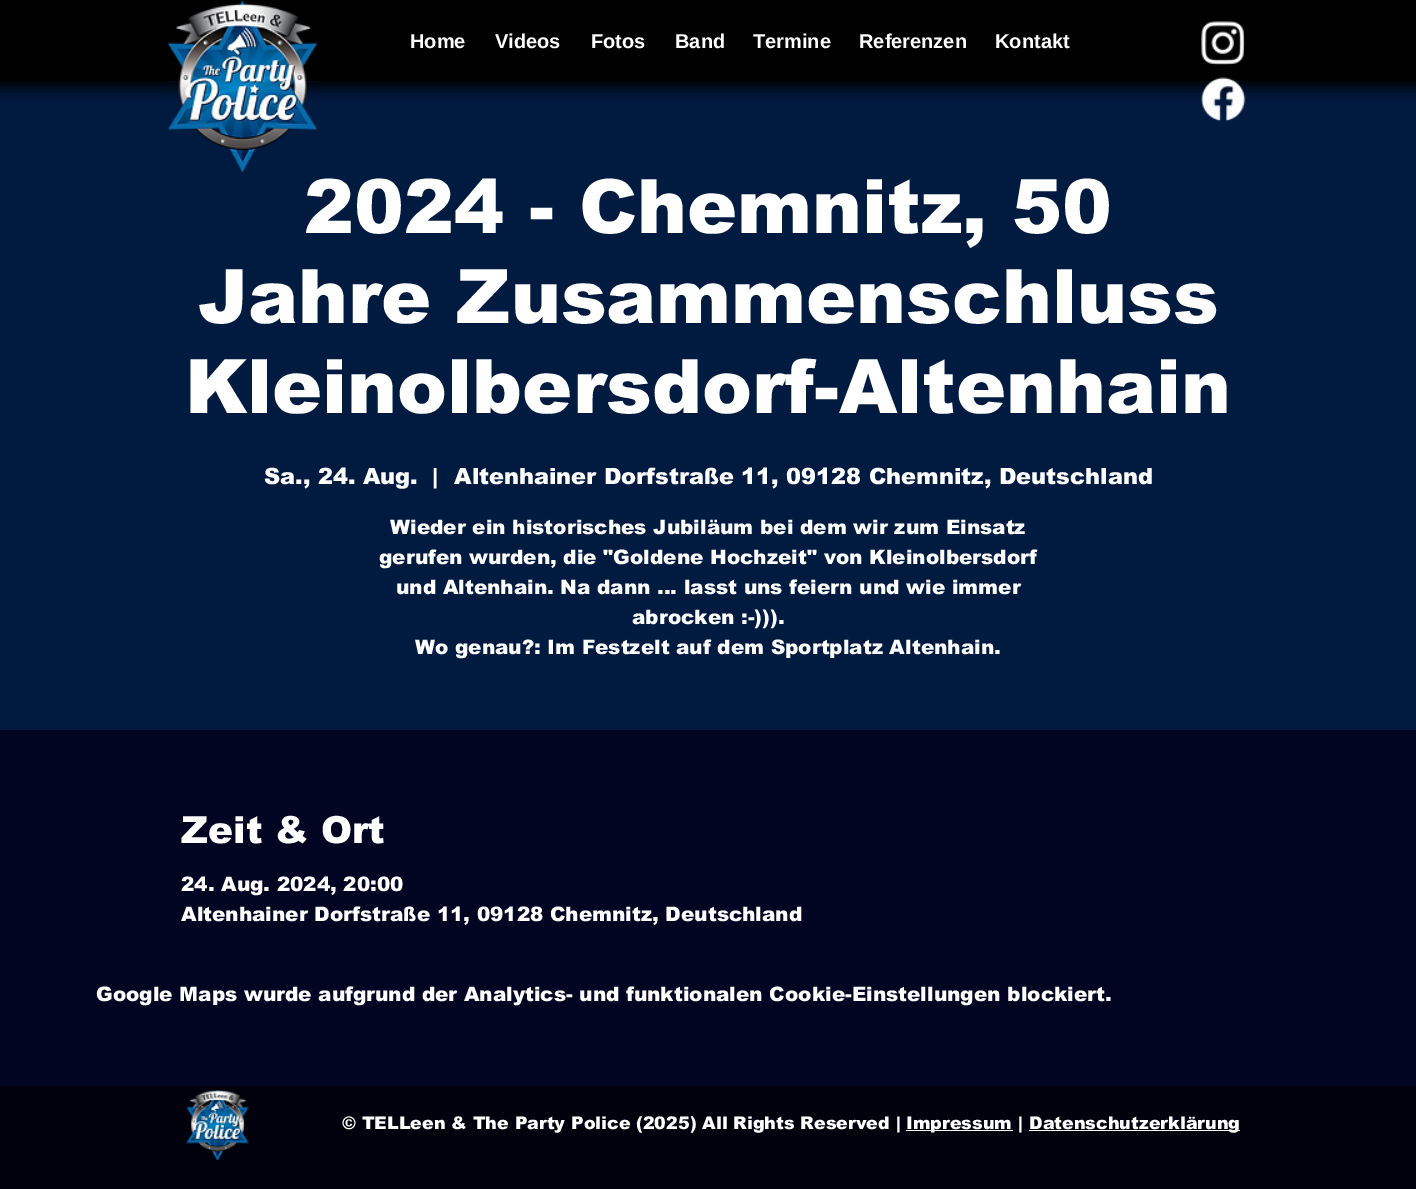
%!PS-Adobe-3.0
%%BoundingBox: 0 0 1416 1189
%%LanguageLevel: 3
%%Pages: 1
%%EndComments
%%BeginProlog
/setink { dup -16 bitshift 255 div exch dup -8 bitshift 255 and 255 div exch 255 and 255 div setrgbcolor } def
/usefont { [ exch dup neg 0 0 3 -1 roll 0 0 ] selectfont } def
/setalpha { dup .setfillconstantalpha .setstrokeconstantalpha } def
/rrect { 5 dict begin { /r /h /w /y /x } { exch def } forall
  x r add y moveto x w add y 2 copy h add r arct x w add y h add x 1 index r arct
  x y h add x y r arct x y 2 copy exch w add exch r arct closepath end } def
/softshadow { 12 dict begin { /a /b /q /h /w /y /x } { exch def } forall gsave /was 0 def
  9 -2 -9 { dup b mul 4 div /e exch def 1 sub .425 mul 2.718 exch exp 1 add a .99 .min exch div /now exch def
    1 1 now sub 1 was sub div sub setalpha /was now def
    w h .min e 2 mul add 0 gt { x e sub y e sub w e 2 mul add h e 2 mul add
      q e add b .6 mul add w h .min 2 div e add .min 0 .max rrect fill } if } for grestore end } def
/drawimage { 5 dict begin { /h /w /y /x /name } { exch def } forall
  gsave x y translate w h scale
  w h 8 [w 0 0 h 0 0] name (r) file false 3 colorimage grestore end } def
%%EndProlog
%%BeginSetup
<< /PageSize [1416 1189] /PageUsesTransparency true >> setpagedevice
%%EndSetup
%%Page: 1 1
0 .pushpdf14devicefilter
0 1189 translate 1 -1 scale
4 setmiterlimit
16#01010D setink
0 0 1416 1189 rectfill
16#011A3F setink
0 81 1416 649 rectfill
16#000000 setink
-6 -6 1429 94 0 7 1 softshadow
0 0 1416 81 rectfill
(img1.raw) 167 0 151 173 drawimage
/LiberationSans-Bold 20 usefont
16#FFFFFF setink
[
    [(Home) 410 48]
    [(Videos) 495 48]
    [(Fotos) 591 48]
    [(Band) 675 48]
    [(Termine) 753 48]
    [(Referenzen) 859 48]
    [(Kontakt) 995 48]
] { aload pop moveto show } forall
(img2.raw) 1201 21 44 44 drawimage
(img3.raw) 1201 77 45 45 drawimage
/arial-Black 75 usefont
[
    [(2024 - Chemnitz, 50) 304 233]
    [(Jahre Zusammenschluss) 198 323]
    [(Kleinolbersdorf-Altenhain) 185 413]
] { aload pop moveto show } forall
/arial-Black 22.5 usefont
[
    [(Sa., 24. Aug.) 264 484]
    [(|) 432 484]
    [(Altenhainer Dorfstraße 11, 09128 Chemnitz, Deutschland) 454 484]
] { aload pop moveto show } forall
/arial-Black 20 usefont
[
    [(Wieder ein historisches Jubiläum bei dem wir zum Einsatz) 390 534]
    [(gerufen wurden, die "Goldene Hochzeit" von Kleinolbersdorf) 379 564]
    [(und Altenhain. Na dann ... lasst uns feiern und wie immer) 396 594]
    [(abrocken :-\)\)\).) 632 624]
    [(Wo genau?: Im Festzelt auf dem Sportplatz Altenhain.) 415 654]
] { aload pop moveto show } forall
16#010521 setink
0 730 1416 356 rectfill
/arial-Black 37.5 usefont
16#FFFFFF setink
181 843 moveto (Zeit & Ort) show
/arial-Black 20 usefont
[
    [(24. Aug. 2024, 20:00) 181 891]
    [(Altenhainer Dorfstraße 11, 09128 Chemnitz, Deutschland) 181 921]
    [(Google Maps wurde aufgrund der Analytics- und funktionalen Cookie-Einstellungen blockiert.) 96 1001]
] { aload pop moveto show } forall
(img4.raw) 186 1090 63 70 drawimage
/arial-Black 17.5 usefont
342 1129 moveto (© TELLeen & The Party Police \(2025\) All Rights Reserved |) show
16#FFFFFE setink
906 1130 107 1 rectfill
16#FFFFFF setink
906 1129 moveto (Impressum |) show
16#FFFFFE setink
1029 1130 211 1 rectfill
16#FFFFFF setink
1029 1129 moveto (Datenschutzerklärung) show
.poppdf14devicefilter showpage
%%EOF
